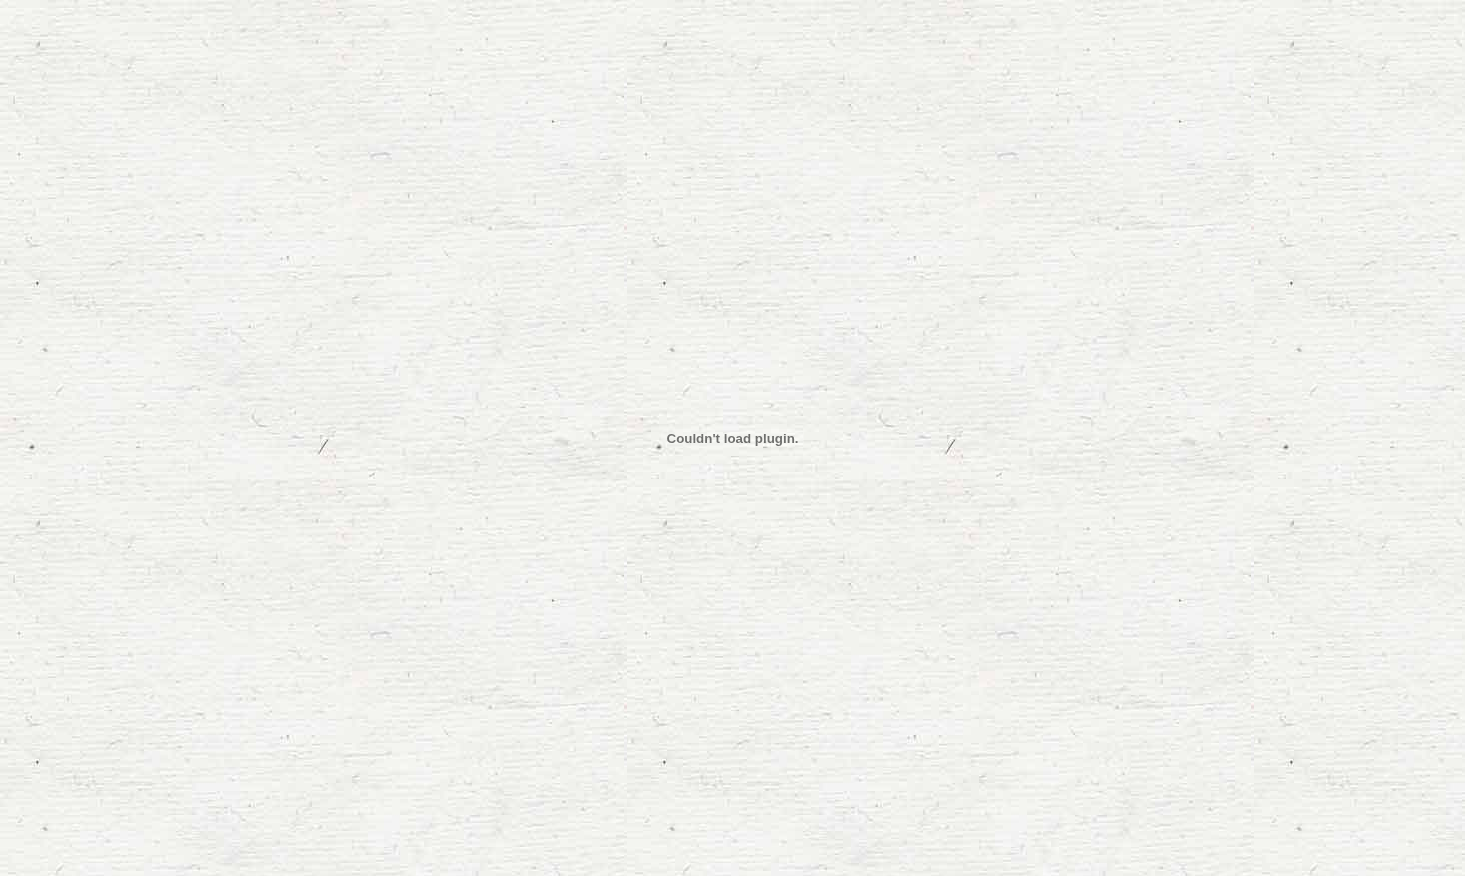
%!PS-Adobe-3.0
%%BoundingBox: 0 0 1465 876
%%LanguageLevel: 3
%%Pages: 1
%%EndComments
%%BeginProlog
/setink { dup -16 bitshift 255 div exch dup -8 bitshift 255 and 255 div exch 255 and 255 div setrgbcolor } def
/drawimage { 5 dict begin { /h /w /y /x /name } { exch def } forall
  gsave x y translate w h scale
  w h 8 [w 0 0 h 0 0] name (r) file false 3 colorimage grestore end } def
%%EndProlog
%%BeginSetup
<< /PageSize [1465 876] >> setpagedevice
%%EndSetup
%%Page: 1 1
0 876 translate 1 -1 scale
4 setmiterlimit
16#FFFFFF setink
0 0 1465 876 rectfill
(img1.raw) 0 0 1465 876 drawimage
(img2.raw) 661 429 143 18 drawimage
showpage
%%EOF
